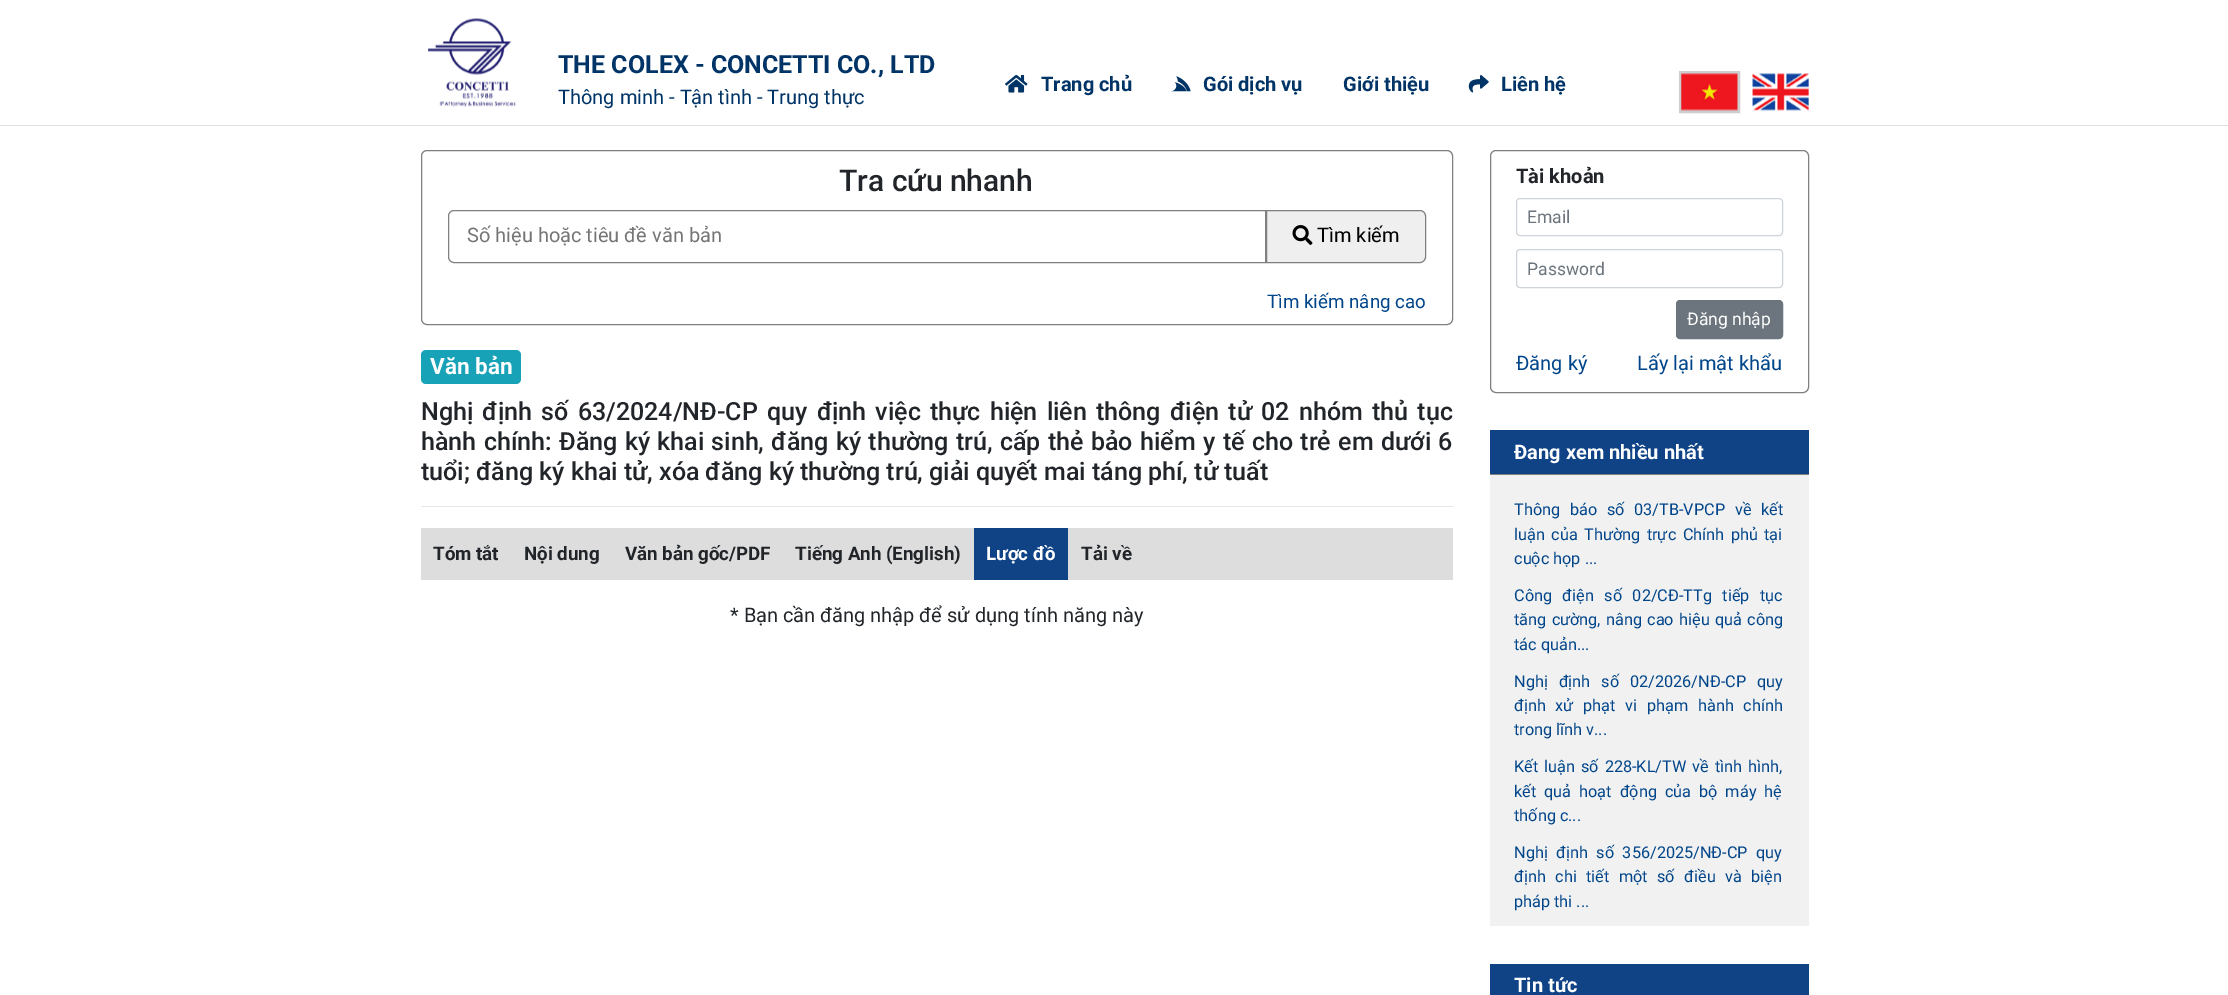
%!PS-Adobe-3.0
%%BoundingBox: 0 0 2228 995
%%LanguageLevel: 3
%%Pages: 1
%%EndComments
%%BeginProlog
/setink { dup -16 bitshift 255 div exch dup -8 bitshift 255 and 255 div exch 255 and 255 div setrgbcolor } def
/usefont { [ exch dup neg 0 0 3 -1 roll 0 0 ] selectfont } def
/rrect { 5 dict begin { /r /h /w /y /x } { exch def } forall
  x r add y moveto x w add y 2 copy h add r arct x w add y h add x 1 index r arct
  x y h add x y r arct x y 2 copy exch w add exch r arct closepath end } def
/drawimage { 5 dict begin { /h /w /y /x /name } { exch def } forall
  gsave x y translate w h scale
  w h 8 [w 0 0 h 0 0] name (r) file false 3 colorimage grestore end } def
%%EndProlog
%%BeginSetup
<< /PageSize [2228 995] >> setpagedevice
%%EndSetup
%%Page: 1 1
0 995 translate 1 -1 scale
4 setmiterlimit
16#FFFFFF setink
0 0 2228 995 rectfill
16#DFDFDF setink
0 125 2228 1 rectfill
(img1.raw) 428 18 88 89 drawimage
/Roboto-Bold 25 usefont
16#003366 setink
558 73 moveto (THE COLEX - CONCETTI CO., LTD) show
/Roboto-Regular 20 usefont
558 104 moveto (Thông minh - Tận tình - Trung thực) show
(img2.raw) 1005 75 23 18 drawimage
/Roboto-Bold 20 usefont
1041 91 moveto (Trang chủ) show
(img3.raw) 1171 76 20 16 drawimage
1203 91 moveto (Gói dịch vụ) show
1343 91 moveto (Giới thiệu) show
(img4.raw) 1468 75 21 18 drawimage
1501 91 moveto (Liên hệ) show
16#CECECE setink
3 setlinewidth
1680.5 72.5 58 39 rectstroke
(img5.raw) 1681 73 57 38 drawimage
(img6.raw) 1752 73 57 38 drawimage
16#808080 setink
1 setlinewidth
421.5 150.5 1031 174 5.5 rrect stroke
/Roboto-Medium 30 usefont
16#212529 setink
839 191 moveto (Tra cứu nhanh) show
16#808080 setink
454 210.5 moveto 1265.5 210.5 lineto 1265.5 262.5 lineto 454 262.5 lineto 451 262.5 448.5 260 448.5 257 curveto 448.5 216 lineto 448.5 213 451 210.5 454 210.5 curveto closepath stroke
/Roboto-Regular 20 usefont
16#757575 setink
467 242 moveto (Số hiệu hoặc tiêu đề văn bản) show
16#EFEFEF setink
1266.5 210.5 moveto 1420 210.5 lineto 1423 210.5 1425.5 213 1425.5 216 curveto 1425.5 257 lineto 1425.5 260 1423 262.5 1420 262.5 curveto 1266.5 262.5 lineto closepath gsave fill grestore
16#808080 setink
stroke
(img7.raw) 1292 225 21 20 drawimage
16#000000 setink
1317 242 moveto (Tìm kiếm) show
/Roboto-Regular 18.75 usefont
16#00458A setink
1267 308 moveto (Tìm kiếm nâng cao) show
16#17A2B8 setink
421 350 100 34 5 rrect fill
/Roboto-Bold 22.5 usefont
16#FFFFFF setink
430 374 moveto (Văn bản) show
/Roboto-Medium 25 usefont
16#212529 setink
421 420 moveto 3.1 0 32 (Nghị định số 63/2024/NĐ-CP quy định việc thực hiện liên thông điện tử 02 nhóm thủ tục) widthshow
421 450 moveto 1.2 0 32 (hành chính: Đăng ký khai sinh, đăng ký thường trú, cấp thẻ bảo hiểm y tế cho trẻ em dưới 6) widthshow
421 480 moveto (tuổi; đăng ký khai tử, xóa đăng ký thường trú, giải quyết mai táng phí, tử tuất) show
16#E6E6E6 setink
421 506 1032 1 rectfill
16#DDDDDD setink
421 528 1032 52 rectfill
/Roboto-Bold 18.75 usefont
16#212529 setink
[
    [(Tóm tắt) 433 560]
    [(Nội dung) 524 560]
    [(Văn bản gốc/PDF) 625 560]
    [(Tiếng Anh \(English\)) 795 560]
] { aload pop moveto show } forall
16#104286 setink
974 528 94 52 rectfill
16#FFFFFF setink
986 560 moveto (Lược đồ) show
16#212529 setink
1081 560 moveto (Tải về) show
/Roboto-Regular 20 usefont
730 622 moveto (* Bạn cần đăng nhập để sử dụng tính năng này) show
16#808080 setink
1490.5 150.5 318 242 5.5 rrect stroke
/Roboto-Bold 20 usefont
16#212529 setink
1516 183 moveto (Tài khoản) show
16#CED4DA setink
1516.5 198.5 266 37 3.5 rrect stroke
/Roboto-Regular 17.5 usefont
16#6C757D setink
1527 223 moveto (Email) show
16#CED4DA setink
1516.5 249.5 266 38 3.5 rrect stroke
16#6C757D setink
1527 275 moveto (Password) show
1676.5 300.5 106 38 3.5 rrect gsave fill grestore
stroke
16#FFFFFF setink
1687 325 moveto (Đăng nhập) show
/Roboto-Regular 20 usefont
16#00458A setink
1516 370 moveto (Đăng ký) show
1637 370 moveto (Lấy lại mật khẩu) show
[
    [1490 475 319 451 16#F1F1F1]
    [1490 430 319 44 16#104286]
    [1490 474 319 1 16#808080]
] { aload pop setink rectfill } forall
/Roboto-Bold 20 usefont
16#FFFFFF setink
1514 459 moveto (Đang xem nhiều nhất) show
/Roboto-Regular 16.25 usefont
16#00458A setink
1514 515 moveto 5.75 0 32 (Thông báo số 03/TB-VPCP về kết) widthshow
1514 540 moveto 2.5 0 32 (luận của Thường trực Chính phủ tại) widthshow
1514 564 moveto (cuộc họp ...) show
1514 601 moveto 6.5 0 32 (Công điện số 02/CĐ-TTg tiếp tục) widthshow
1514 625 moveto 1.25 0 32 (tăng cường, nâng cao hiệu quả công) widthshow
1514 650 moveto (tác quản...) show
1514 687 moveto 7 0 32 (Nghị định số 02/2026/NĐ-CP quy) widthshow
1514 711 moveto 5.75 0 32 (định xử phạt vi phạm hành chính) widthshow
1514 735 moveto (trong lĩnh v...) show
1514 772 moveto 2 0 32 (Kết luận số 228-KL/TW về tình hình,) widthshow
1514 797 moveto 4 0 32 (kết quả hoạt động của bộ máy hệ) widthshow
1514 821 moveto (thống c...) show
1514 858 moveto 4.5 0 32 (Nghị định số 356/2025/NĐ-CP quy) widthshow
1514 882 moveto 5.5 0 32 (định chi tiết một số điều và biện) widthshow
1514 907 moveto (pháp thi ...) show
16#104286 setink
1490 964 319 31 rectfill
/Roboto-Bold 20 usefont
16#FFFFFF setink
1514 992 moveto (Tin tức) show
showpage
%%EOF
